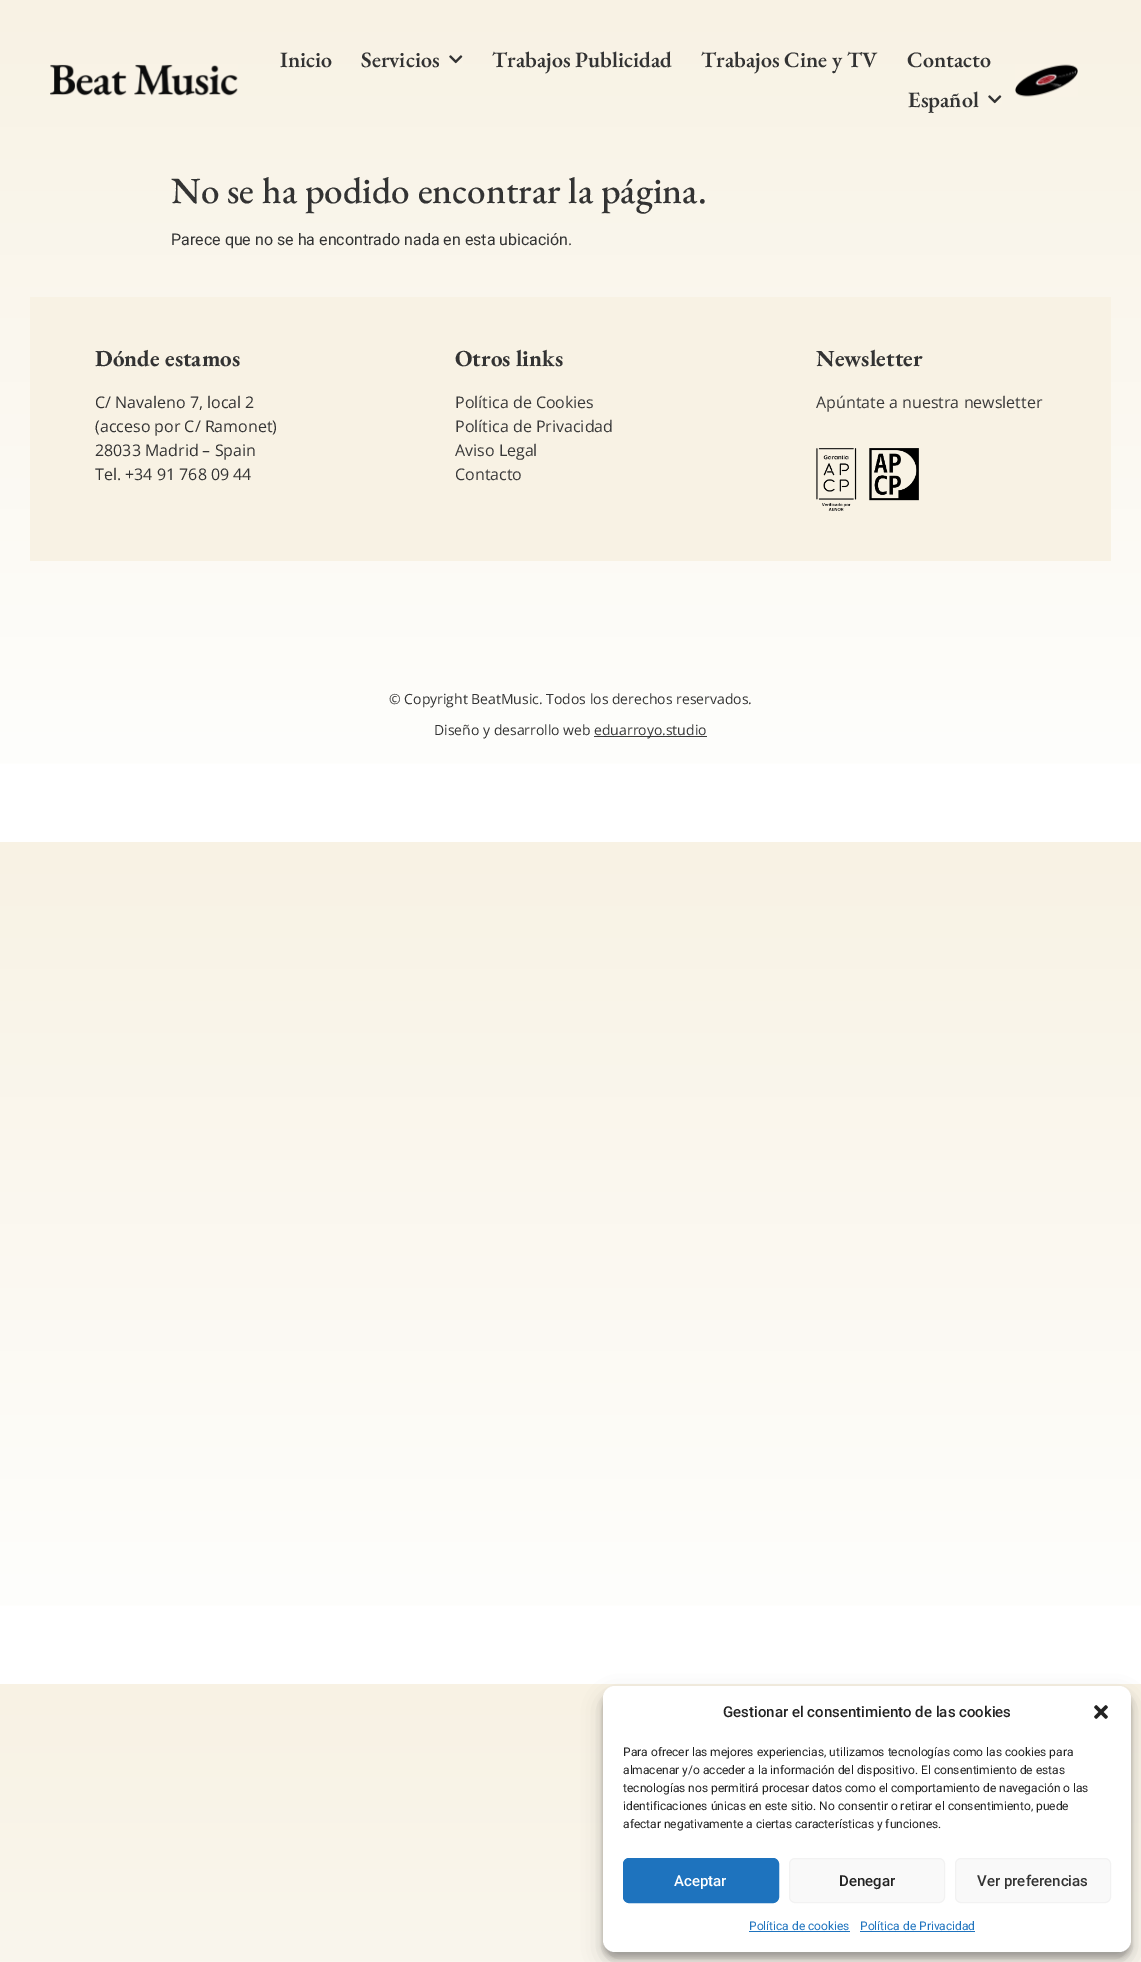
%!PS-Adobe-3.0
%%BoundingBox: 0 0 1141 1962
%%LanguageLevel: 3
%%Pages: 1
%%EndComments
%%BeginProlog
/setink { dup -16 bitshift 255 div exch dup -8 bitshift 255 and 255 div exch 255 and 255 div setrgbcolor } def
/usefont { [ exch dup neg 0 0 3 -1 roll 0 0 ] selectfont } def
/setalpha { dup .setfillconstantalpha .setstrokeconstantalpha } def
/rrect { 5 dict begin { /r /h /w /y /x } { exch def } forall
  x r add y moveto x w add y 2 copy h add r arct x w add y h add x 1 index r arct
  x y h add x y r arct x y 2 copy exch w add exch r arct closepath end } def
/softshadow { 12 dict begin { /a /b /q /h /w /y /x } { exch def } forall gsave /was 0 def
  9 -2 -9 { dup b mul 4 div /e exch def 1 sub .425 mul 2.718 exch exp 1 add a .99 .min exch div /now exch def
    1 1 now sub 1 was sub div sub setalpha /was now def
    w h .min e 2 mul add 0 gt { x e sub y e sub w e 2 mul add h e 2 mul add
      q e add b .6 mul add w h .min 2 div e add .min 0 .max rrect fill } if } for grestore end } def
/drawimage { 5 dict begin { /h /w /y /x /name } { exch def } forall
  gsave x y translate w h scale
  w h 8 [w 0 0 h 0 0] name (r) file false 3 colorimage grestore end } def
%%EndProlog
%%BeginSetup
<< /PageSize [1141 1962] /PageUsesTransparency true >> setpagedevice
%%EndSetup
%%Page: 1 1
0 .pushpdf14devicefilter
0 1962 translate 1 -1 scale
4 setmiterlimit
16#FFFFFF setink
0 0 1141 1962 rectfill
gsave 0 0 moveto 1141 0 lineto 1141 764 lineto 0 764 lineto closepath clip newpath
<< /ShadingType 2 /ColorSpace /DeviceRGB /Coords [571 0 571 842] /Extend [true true] /Function << /FunctionType 2 /Domain [0 1] /C0 [0.973 0.949 0.894] /C1 [1 1 1] /N 1 >> >> shfill grestore
gsave 0 842 moveto 1141 842 lineto 1141 1606 lineto 0 1606 lineto closepath clip newpath
<< /ShadingType 2 /ColorSpace /DeviceRGB /Coords [571 842 571 1684] /Extend [true true] /Function << /FunctionType 2 /Domain [0 1] /C0 [0.973 0.949 0.894] /C1 [1 1 1] /N 1 >> >> shfill grestore
gsave 0 1684 moveto 1141 1684 lineto 1141 1962 lineto 0 1962 lineto closepath clip newpath
<< /ShadingType 2 /ColorSpace /DeviceRGB /Coords [571 1684 571 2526] /Extend [true true] /Function << /FunctionType 2 /Domain [0 1] /C0 [0.973 0.949 0.894] /C1 [1 1 1] /N 1 >> >> shfill grestore
(img1.raw) 50 64 188 32 drawimage
/EBGaramond-SemiBold 22 usefont
16#333333 setink
280 67 moveto (Inicio) show
361 67 moveto (Servicios) show
(img2.raw) 449 55 14 9 drawimage
[
    [(Trabajos Publicidad) 492 67]
    [(Trabajos Cine y TV) 701 67]
    [(Contacto) 907 67]
    [(Español) 908 107]
] { aload pop moveto show } forall
(img3.raw) 988 95 14 9 drawimage
(img4.raw) 1015 64 63 33 drawimage
/EBGaramond-Medium 37 usefont
171 203 moveto (No se ha podido encontrar la página.) show
/Roboto-Regular 16 usefont
171 245 moveto (Parece que no se ha encontrado nada en esta ubicación.) show
16#F8F2E4 setink
30 297 1081 264 rectfill
/EBGaramond-Bold 23 usefont
16#333333 setink
95 366 moveto (Dónde estamos) show
/OpenSans-Regular 16 usefont
[
    [(C/ Navaleno 7, local 2) 95 408]
    [(\(acceso por C/ Ramonet\)) 95 432]
    [(28033 Madrid – Spain) 95 456]
    [(Tel. +34 91 768 09 44) 95 480]
] { aload pop moveto show } forall
/EBGaramond-Bold 23 usefont
455 366 moveto (Otros links) show
/OpenSans-Regular 16 usefont
16#393939 setink
[
    [(Política de Cookies) 455 408]
    [(Política de Privacidad) 455 432]
    [(Aviso Legal) 455 456]
    [(Contacto) 455 480]
] { aload pop moveto show } forall
/EBGaramond-Bold 23 usefont
16#333333 setink
816 366 moveto (Newsletter) show
/OpenSans-Regular 16 usefont
16#393939 setink
816 408 moveto (Apúntate a nuestra newsletter) show
(img5.raw) 816 448 103 63 drawimage
/OpenSans-Regular 14 usefont
16#333333 setink
389 704 moveto (© Copyright BeatMusic. Todos los derechos reservados.) show
434 735 moveto (Diseño y desarrollo web) show
16#393939 setink
594 736 113 1 rectfill
594 735 moveto (eduarroyo.studio) show
16#000000 setink
603 1692 528 266 12 3 0.23 softshadow
603 1696 528 266 12 10 0.19 softshadow
16#FFFFFF setink
603 1686 528 266 12 rrect fill
/Roboto-Medium 15 usefont
16#222222 setink
723 1717 moveto (Gestionar el consentimiento de las cookies) show
(img6.raw) 1094 1705 14 14 drawimage
/Roboto-Regular 12 usefont
[
    [(Para ofrecer las mejores experiencias, utilizamos tecnologías como las cookies para) 623 1756]
    [(almacenar y/o acceder a la información del dispositivo. El consentimiento de estas) 623 1774]
    [(tecnologías nos permitirá procesar datos como el comportamiento de navegación o las) 623 1792]
    [(identificaciones únicas en este sitio. No consentir o retirar el consentimiento, puede) 623 1810]
    [(afectar negativamente a ciertas características y funciones.) 623 1828]
] { aload pop moveto show } forall
16#1E73BE setink
623.5 1858.5 155 44 5.5 rrect gsave fill grestore
stroke
/Roboto-Medium 15 usefont
16#FFFFFF setink
674 1886 moveto (Aceptar) show
16#F9F9F9 setink
789.5 1858.5 155 44 5.5 rrect gsave fill grestore
16#F2F2F2 setink
stroke
16#222222 setink
839 1886 moveto (Denegar) show
16#F9F9F9 setink
955.5 1858.5 155 44 5.5 rrect gsave fill grestore
16#F2F2F2 setink
stroke
16#333333 setink
977 1886 moveto (Ver preferencias) show
/Roboto-Regular 12 usefont
16#1E73BE setink
749 1930 moveto (Política de cookies) show
749 1931 101 1 rectfill
860 1930 moveto (Política de Privacidad) show
860 1931 115 1 rectfill
.poppdf14devicefilter showpage
%%EOF
